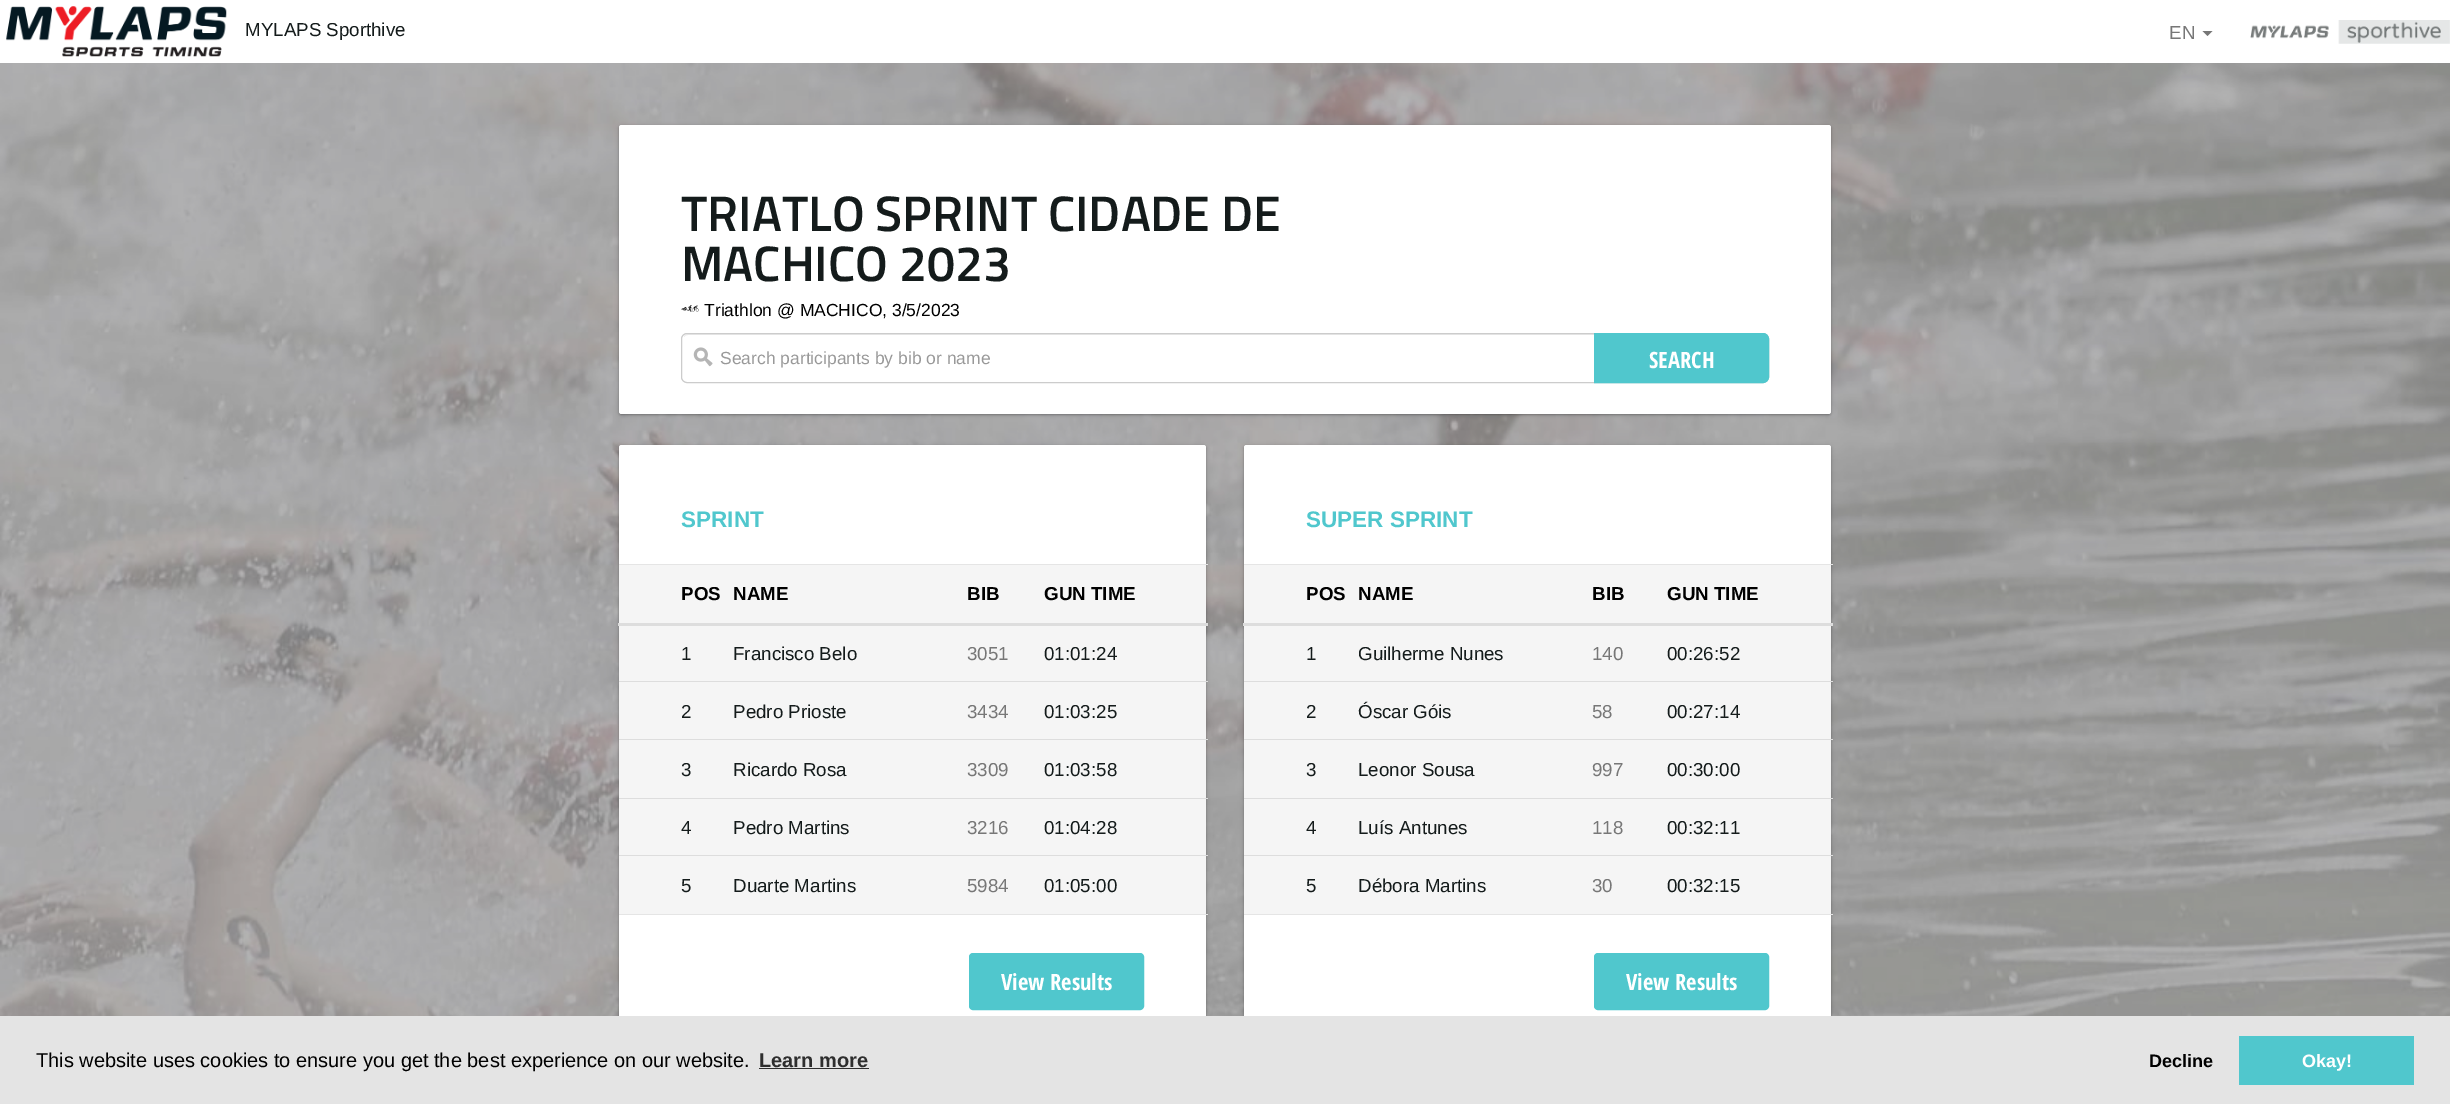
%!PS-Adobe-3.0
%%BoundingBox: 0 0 2450 1104
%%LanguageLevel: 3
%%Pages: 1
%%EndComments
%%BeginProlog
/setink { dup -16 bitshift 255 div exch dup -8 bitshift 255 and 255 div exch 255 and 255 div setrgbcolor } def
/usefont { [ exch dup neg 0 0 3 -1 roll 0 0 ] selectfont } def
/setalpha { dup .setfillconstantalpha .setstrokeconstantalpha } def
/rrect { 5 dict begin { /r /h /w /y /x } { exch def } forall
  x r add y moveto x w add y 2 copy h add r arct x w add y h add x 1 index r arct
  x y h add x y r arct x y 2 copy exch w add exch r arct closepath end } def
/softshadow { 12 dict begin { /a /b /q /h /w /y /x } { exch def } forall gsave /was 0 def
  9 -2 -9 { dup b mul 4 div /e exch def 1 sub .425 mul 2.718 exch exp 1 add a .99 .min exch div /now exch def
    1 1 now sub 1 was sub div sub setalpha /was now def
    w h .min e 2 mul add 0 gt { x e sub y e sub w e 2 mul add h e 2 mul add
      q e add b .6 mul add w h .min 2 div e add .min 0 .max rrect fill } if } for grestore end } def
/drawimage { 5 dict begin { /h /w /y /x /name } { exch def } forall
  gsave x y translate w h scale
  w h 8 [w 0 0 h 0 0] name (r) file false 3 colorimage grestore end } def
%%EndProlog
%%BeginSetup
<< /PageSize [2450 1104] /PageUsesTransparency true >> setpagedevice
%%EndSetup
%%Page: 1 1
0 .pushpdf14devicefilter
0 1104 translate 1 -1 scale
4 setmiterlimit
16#FFFFFF setink
0 0 2450 1104 rectfill
(img1.raw) 0 63 2450 953 drawimage
(img2.raw) 6 6 221 51 drawimage
/LiberationSans-Regular 18.75 usefont
16#141B1B setink
245 36 moveto (MYLAPS Sporthive) show
16#777777 setink
2169 39 moveto (EN) show
2202.5 31 moveto 2212.5 31 lineto 2207.5 36 lineto closepath fill
(img3.raw) 2250 20 200 24 drawimage
16#000000 setink
619 126 1212 289 2.5 1 0.24 softshadow
619 126 1212 289 2.5 2 0.12 softshadow
16#FFFFFF setink
619 125 1212 289 2.5 rrect fill
/TitilliumWeb-SemiBold 50 usefont
16#141B1B setink
681 231 moveto (TRIATLO SPRINT CIDADE DE) show
681 281 moveto (MACHICO 2023) show
(img4.raw) 681 305 18 7 drawimage
/LiberationSans-Regular 17.5 usefont
16#000000 setink
704 316 moveto (Triathlon @ MACHICO, 3/5/2023) show
16#ECECEC setink
688 335 moveto 1762 335 lineto 1765 335 1768 337 1768 340 curveto 1768 339 lineto 1768 336 1766 334 1763 334 curveto 688 334 lineto 686 334 684 335 684 337 curveto 685 336 686 335 688 335 curveto closepath fill
16#CCCCCC setink
681.5 333.5 1087 49 5.5 rrect stroke
(img5.raw) 693 347 20 20 drawimage
16#999999 setink
720 364 moveto (Search participants by bib or name) show
16#50C7CD setink
1595.5 334.5 moveto 1763 334.5 lineto 1765.5 334.5 1767.5 336.5 1767.5 339 curveto 1767.5 377 lineto 1767.5 379.5 1765.5 381.5 1763 381.5 curveto 1595.5 381.5 lineto closepath gsave fill grestore
3 setlinewidth
stroke
/OpenSansCondensed-Bold 22.5 usefont
16#FFFFFF setink
1649 368 moveto (SEARCH) show
16#000000 setink
619 446 587 603 2.5 1 0.24 softshadow
619 446 587 603 2.5 2 0.12 softshadow
16#FFFFFF setink
619 445 587 603 2.5 rrect fill
/LiberationSans-Bold 22.5 usefont
16#50C7CD setink
681 527 moveto (SPRINT) show
16#F5F5F5 setink
619 565 587 349 rectfill
16#E5E5E5 setink
619 564 589 1 rectfill
/LiberationSans-Bold 18.75 usefont
16#000000 setink
[
    [(POS) 681 600]
    [(NAME) 733 600]
    [(BIB) 967 600]
] { aload pop moveto show } forall
16#DDDDDD setink
618 623 590 3 rectfill
16#000000 setink
1044 600 moveto (GUN TIME) show
/LiberationSans-Regular 18.75 usefont
16#141B1B setink
681 660 moveto (1) show
733 660 moveto (Francisco Belo) show
16#777777 setink
967 660 moveto (3051) show
16#141B1B setink
[
    [(01:01:24) 1044 660]
    [(2) 681 718]
    [(Pedro Prioste) 733 718]
] { aload pop moveto show } forall
16#777777 setink
967 718 moveto (3434) show
16#DDDDDD setink
619 681 589 1 rectfill
16#141B1B setink
[
    [(01:03:25) 1044 718]
    [(3) 681 776]
    [(Ricardo Rosa) 733 776]
] { aload pop moveto show } forall
16#777777 setink
967 776 moveto (3309) show
16#DDDDDD setink
619 739 589 1 rectfill
16#141B1B setink
[
    [(01:03:58) 1044 776]
    [(4) 681 834]
    [(Pedro Martins) 733 834]
] { aload pop moveto show } forall
16#777777 setink
967 834 moveto (3216) show
16#DDDDDD setink
619 798 589 1 rectfill
16#141B1B setink
1044 834 moveto (01:04:28) show
16#E5E5E5 setink
619 914 589 1 rectfill
16#141B1B setink
681 892 moveto (5) show
733 892 moveto (Duarte Martins) show
16#777777 setink
967 892 moveto (5984) show
16#DDDDDD setink
619 855 589 1 rectfill
16#141B1B setink
1044 892 moveto (01:05:00) show
16#50C7CD setink
970.5 954.5 172 54 2.5 rrect gsave fill grestore
stroke
/OpenSansCondensed-Bold 22.5 usefont
16#FFFFFF setink
1001 990 moveto (View Results) show
16#000000 setink
1244 446 587 603 2.5 1 0.24 softshadow
1244 446 587 603 2.5 2 0.12 softshadow
16#FFFFFF setink
1244 445 587 603 2.5 rrect fill
/LiberationSans-Bold 22.5 usefont
16#50C7CD setink
1306 527 moveto (SUPER SPRINT) show
16#F5F5F5 setink
1244 565 587 349 rectfill
16#E5E5E5 setink
1244 564 589 1 rectfill
/LiberationSans-Bold 18.75 usefont
16#000000 setink
[
    [(POS) 1306 600]
    [(NAME) 1358 600]
    [(BIB) 1592 600]
] { aload pop moveto show } forall
16#DDDDDD setink
1243 623 590 3 rectfill
16#000000 setink
1667 600 moveto (GUN TIME) show
/LiberationSans-Regular 18.75 usefont
16#141B1B setink
1306 660 moveto (1) show
1358 660 moveto (Guilherme Nunes) show
16#777777 setink
1592 660 moveto (140) show
16#141B1B setink
[
    [(00:26:52) 1667 660]
    [(2) 1306 718]
    [(Óscar Góis) 1358 718]
] { aload pop moveto show } forall
16#777777 setink
1592 718 moveto (58) show
16#DDDDDD setink
1244 681 589 1 rectfill
16#141B1B setink
[
    [(00:27:14) 1667 718]
    [(3) 1306 776]
    [(Leonor Sousa) 1358 776]
] { aload pop moveto show } forall
16#777777 setink
1592 776 moveto (997) show
16#DDDDDD setink
1244 739 589 1 rectfill
16#141B1B setink
[
    [(00:30:00) 1667 776]
    [(4) 1306 834]
    [(Luís Antunes) 1358 834]
] { aload pop moveto show } forall
16#777777 setink
1592 834 moveto (118) show
16#DDDDDD setink
1244 798 589 1 rectfill
16#141B1B setink
1667 834 moveto (00:32:11) show
16#E5E5E5 setink
1244 914 589 1 rectfill
16#141B1B setink
1306 892 moveto (5) show
1358 892 moveto (Débora Martins) show
16#777777 setink
1592 892 moveto (30) show
16#DDDDDD setink
1244 855 589 1 rectfill
16#141B1B setink
1667 892 moveto (00:32:15) show
16#50C7CD setink
1595.5 954.5 172 54 2.5 rrect gsave fill grestore
stroke
/OpenSansCondensed-Bold 22.5 usefont
16#FFFFFF setink
1626 990 moveto (View Results) show
16#E4E4E4 setink
0 1016 2450 88 rectfill
/LiberationSans-Regular 20 usefont
16#000000 setink
36 1067 moveto (This website uses cookies to ensure you get the best experience on our website.) show
/LiberationSans-Bold 20 usefont
16#2E2E2E setink
759 1067 moveto (Learn more) show
759 1068 110 1 rectfill
/LiberationSans-Bold 18 usefont
16#000000 setink
2149 1067 moveto (Decline) show
16#50C7CD setink
2239 1036 175 49 rectfill
16#FFFFFF setink
2302 1067 moveto (Okay!) show
.poppdf14devicefilter showpage
%%EOF
